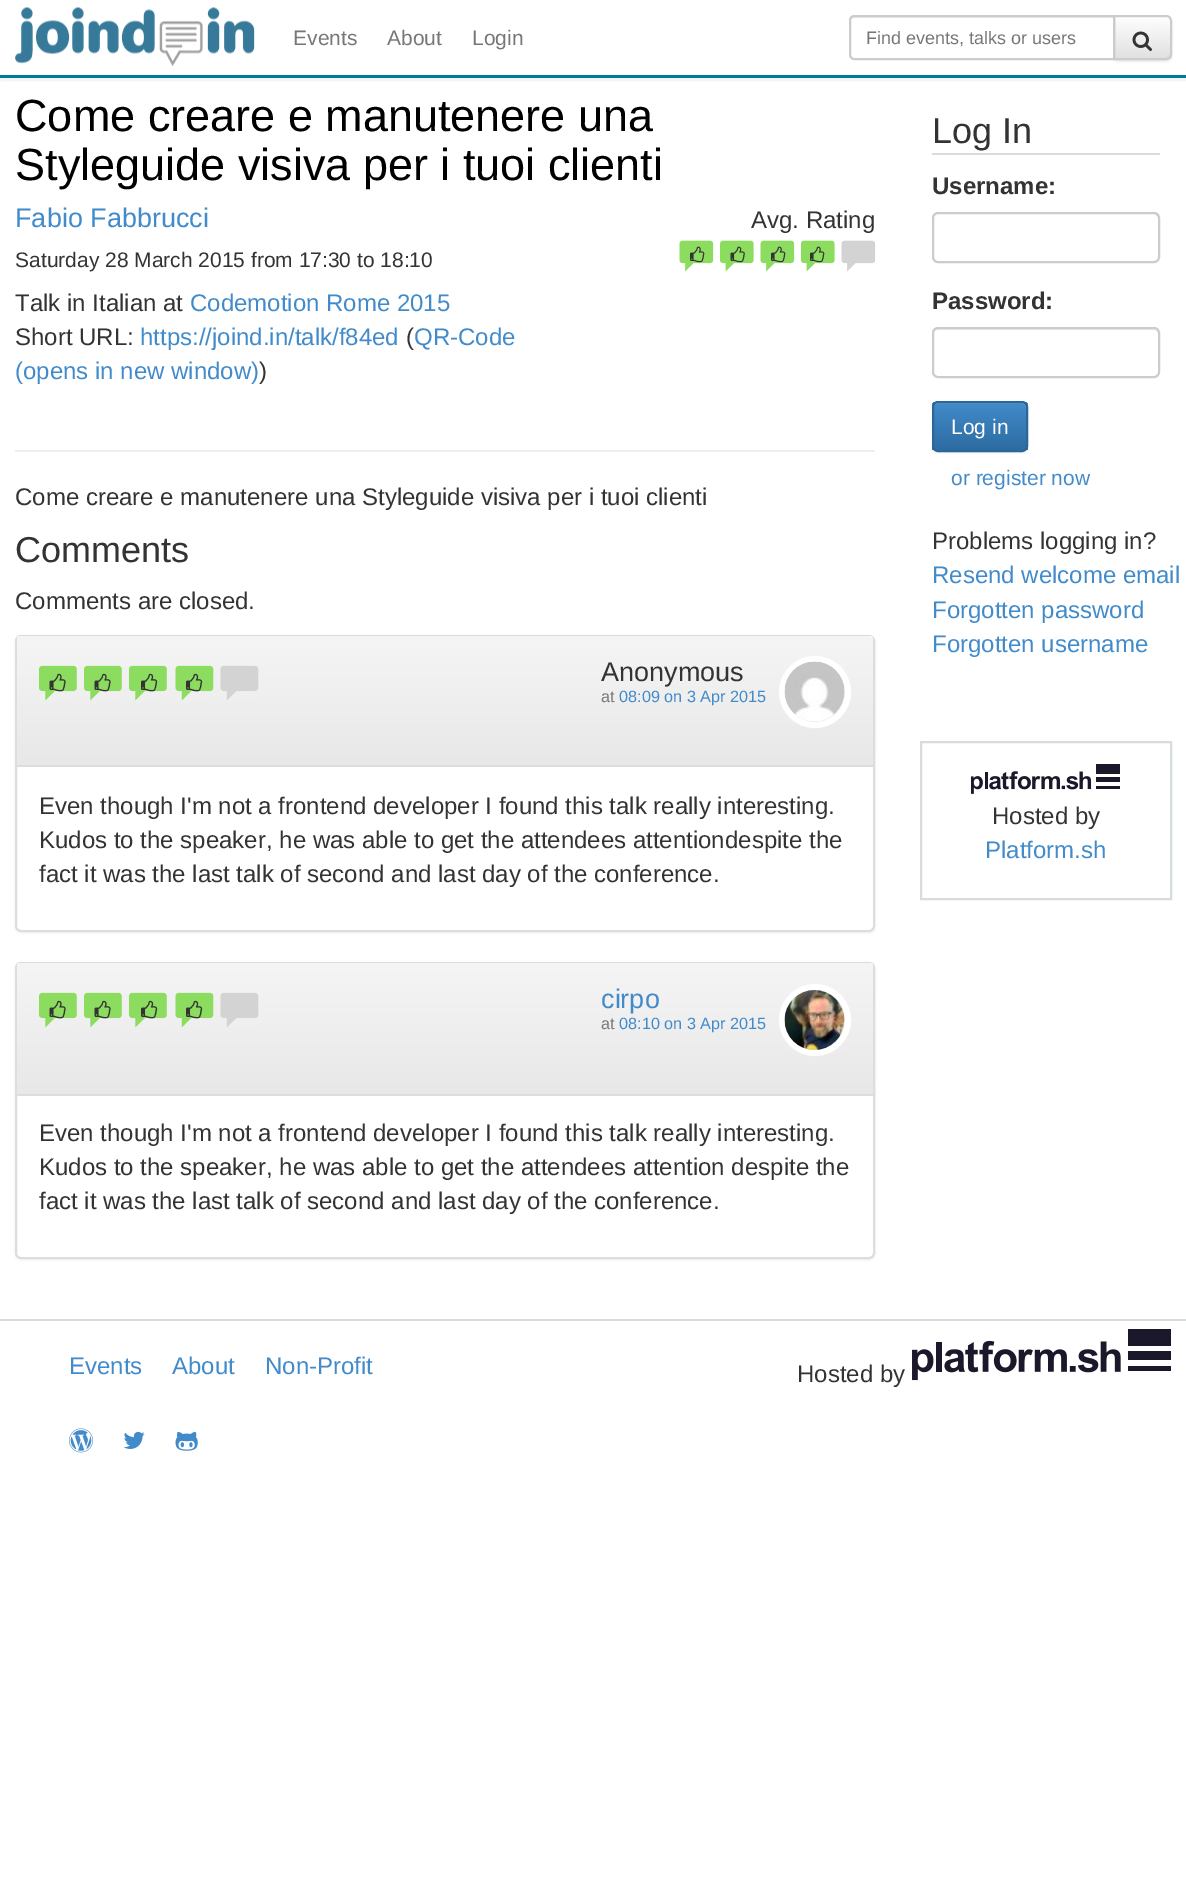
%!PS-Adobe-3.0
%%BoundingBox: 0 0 1186 1895
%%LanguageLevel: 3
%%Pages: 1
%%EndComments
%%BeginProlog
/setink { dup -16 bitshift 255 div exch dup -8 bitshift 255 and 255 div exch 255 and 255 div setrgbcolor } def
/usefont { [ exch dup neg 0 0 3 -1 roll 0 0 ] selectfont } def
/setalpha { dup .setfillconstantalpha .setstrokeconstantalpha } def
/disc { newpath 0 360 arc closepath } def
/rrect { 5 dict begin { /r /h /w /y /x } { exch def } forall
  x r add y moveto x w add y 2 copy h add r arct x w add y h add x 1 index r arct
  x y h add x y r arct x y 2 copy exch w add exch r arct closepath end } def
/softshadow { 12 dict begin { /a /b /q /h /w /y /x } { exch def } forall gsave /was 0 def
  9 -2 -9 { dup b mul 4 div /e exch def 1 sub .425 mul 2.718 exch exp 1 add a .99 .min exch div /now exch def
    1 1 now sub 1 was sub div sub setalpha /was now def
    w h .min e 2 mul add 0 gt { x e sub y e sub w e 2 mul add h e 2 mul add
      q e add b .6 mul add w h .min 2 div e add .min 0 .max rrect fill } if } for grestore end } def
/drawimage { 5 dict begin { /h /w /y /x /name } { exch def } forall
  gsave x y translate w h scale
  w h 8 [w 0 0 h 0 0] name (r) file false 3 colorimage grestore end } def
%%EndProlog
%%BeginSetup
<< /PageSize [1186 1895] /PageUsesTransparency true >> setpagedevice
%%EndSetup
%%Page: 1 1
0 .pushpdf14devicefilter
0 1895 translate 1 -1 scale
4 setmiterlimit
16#FFFFFF setink
0 0 1186 1895 rectfill
gsave
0 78 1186 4 rectclip
16#000000 setink
0 2 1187 78 0 4 0.07 softshadow
grestore
16#007B97 setink
0 75 1186 3 rectfill
(img1.raw) 15 7 240 60 drawimage
/LiberationSans-Regular 21 usefont
16#777777 setink
[
    [(Events) 293 45]
    [(About) 387 45]
    [(Login) 472 45]
] { aload pop moveto show } forall
16#000000 setink
1113 17 59 45 6 1 0.07 softshadow
gsave
1113 15 moveto 1166 15 lineto 1169.5 15 1172 17.5 1172 21 curveto 1172 54 lineto 1172 57.5 1169.5 60 1166 60 curveto 1113 60 lineto closepath clip newpath
gsave 1115 17 moveto 1172 17 lineto 1172 59 lineto 1115 59 lineto closepath clip newpath
<< /ShadingType 2 /ColorSpace /DeviceRGB /Coords [1142 16 1142 59] /Extend [true true] /Function << /FunctionType 2 /Domain [0 1] /C0 [1 1 1] /C1 [0.878 0.878 0.878] /N 1 >> >> shfill grestore
grestore
16#CCCCCC setink
2 setlinewidth
1114 16 moveto 1166 16 lineto 1169 16 1171 18 1171 21 curveto 1171 54 lineto 1171 57 1169 59 1166 59 curveto 1114 59 lineto closepath stroke
16#FFFFFF setink
854 15 moveto 1115 15 lineto 1115 60 lineto 854 60 lineto 851 60 849 58 849 55 curveto 849 20 lineto 849 17 851 15 854 15 curveto closepath fill
16#ECECEC setink
854 18 moveto 1113 18 lineto 1113 17 lineto 854 17 lineto 853 17 852 18 851 19 curveto closepath fill
16#CCCCCC setink
854 16 moveto 1114 16 lineto 1114 59 lineto 854 59 lineto 852 59 850 57 850 55 curveto 850 20 lineto 850 18 852 16 854 16 curveto closepath stroke
/LiberationSans-Regular 18 usefont
16#777777 setink
866 44 moveto (Find events, talks or users) show
(img2.raw) 1132 31 20 20 drawimage
16#EEEEEE setink
15 450 860 2 rectfill
/LiberationSans-Regular 45 usefont
16#000000 setink
15 131 moveto (Come creare e manutenere una) show
15 180 moveto (Styleguide visiva per i tuoi clienti) show
/LiberationSans-Regular 27 usefont
16#428BCA setink
15 227 moveto (Fabio Fabbrucci) show
/LiberationSans-Regular 21 usefont
16#333333 setink
15 267 moveto (Saturday 28 March 2015 from 17:30 to 18:10) show
/LiberationSans-Regular 24 usefont
15 311 moveto (Talk in Italian at) show
16#428BCA setink
190 311 moveto (Codemotion Rome 2015) show
16#333333 setink
15 345 moveto (Short URL:) show
16#428BCA setink
140 345 moveto (https://joind.in/talk/f84ed) show
16#333333 setink
406 345 moveto (\() show
16#428BCA setink
414 345 moveto (QR-Code) show
15 379 moveto (\(opens in new window\)) show
16#333333 setink
259 379 moveto (\)) show
751 228 moveto (Avg. Rating) show
(img3.raw) 679 240 35 32 drawimage
(img4.raw) 690 246 15 17 drawimage
(img5.raw) 720 240 34 32 drawimage
(img6.raw) 730 246 15 17 drawimage
(img3.raw) 760 240 35 32 drawimage
(img4.raw) 771 246 15 17 drawimage
(img5.raw) 801 240 34 32 drawimage
(img4.raw) 810 246 15 17 drawimage
(img7.raw) 841 240 35 32 drawimage
15 505 moveto (Come creare e manutenere una Styleguide visiva per i tuoi clienti) show
/LiberationSans-Regular 36 usefont
15 562 moveto (Comments) show
/LiberationSans-Regular 24 usefont
15 609 moveto (Comments are closed.) show
16#000000 setink
15 636 860 297 6 1.5 0.05 softshadow
16#FFFFFF setink
16 636 858 295 5 rrect gsave fill grestore
16#DDDDDD setink
stroke
gsave 22 636 moveto 868 636 lineto 871 636 873 638 873 641 curveto 873 765 lineto 17 765 lineto 17 641 lineto 17 638 19 636 22 636 curveto closepath clip newpath
<< /ShadingType 2 /ColorSpace /DeviceRGB /Coords [445 636 445 765] /Extend [true true] /Function << /FunctionType 2 /Domain [0 1] /C0 [0.961 0.961 0.961] /C1 [0.91 0.91 0.91] /N 1 >> >> shfill grestore
17 765 856 2 rectfill
(img8.raw) 39 665 38 36 drawimage
(img9.raw) 49 673 17 19 drawimage
(img8.raw) 84 665 38 36 drawimage
(img9.raw) 94 673 17 19 drawimage
(img8.raw) 129 665 38 36 drawimage
(img10.raw) 141 673 17 19 drawimage
(img11.raw) 175 665 39 36 drawimage
(img12.raw) 186 673 17 19 drawimage
(img13.raw) 220 665 39 35 drawimage
/LiberationSans-Regular 27 usefont
16#333333 setink
601 681 moveto (Anonymous) show
/LiberationSans-Regular 16.25 usefont
16#777777 setink
601 702 moveto (at) show
16#428BCA setink
619 702 moveto (08:09 on 3 Apr 2015) show
16#FFFFFF setink
6 setlinewidth
815 692 33 disc stroke
(img14.raw) 784 661 61 61 drawimage
/LiberationSans-Regular 24 usefont
16#333333 setink
[
    [(Even though I'm not a frontend developer I found this talk really interesting.) 39 814]
    [(Kudos to the speaker, he was able to get the attendees attentiondespite the) 39 848]
    [(fact it was the last talk of second and last day of the conference.) 39 882]
] { aload pop moveto show } forall
16#000000 setink
15 963 860 297 6 1.5 0.05 softshadow
16#FFFFFF setink
16 963 858 295 5 rrect gsave fill grestore
16#DDDDDD setink
2 setlinewidth
stroke
gsave 22 963 moveto 868 963 lineto 871 963 873 965 873 968 curveto 873 1094 lineto 17 1094 lineto 17 968 lineto 17 965 19 963 22 963 curveto closepath clip newpath
<< /ShadingType 2 /ColorSpace /DeviceRGB /Coords [445 963 445 1094] /Extend [true true] /Function << /FunctionType 2 /Domain [0 1] /C0 [0.961 0.961 0.961] /C1 [0.91 0.91 0.91] /N 1 >> >> shfill grestore
17 1094 856 2 rectfill
(img8.raw) 39 992 38 36 drawimage
(img9.raw) 49 1000 17 19 drawimage
(img8.raw) 84 992 38 36 drawimage
(img9.raw) 94 1000 17 19 drawimage
(img8.raw) 129 992 38 36 drawimage
(img10.raw) 141 1000 17 19 drawimage
(img11.raw) 175 992 39 36 drawimage
(img12.raw) 186 1000 17 19 drawimage
(img13.raw) 220 992 39 35 drawimage
/LiberationSans-Regular 27 usefont
16#428BCA setink
601 1008 moveto (cirpo) show
/LiberationSans-Regular 16.25 usefont
16#777777 setink
601 1029 moveto (at) show
16#428BCA setink
619 1029 moveto (08:10 on 3 Apr 2015) show
16#FFFFFF setink
6 setlinewidth
815 1020 33 disc stroke
(img15.raw) 784 990 61 60 drawimage
/LiberationSans-Regular 24 usefont
16#333333 setink
[
    [(Even though I'm not a frontend developer I found this talk really interesting.) 39 1141]
    [(Kudos to the speaker, he was able to get the attendees attention despite the) 39 1175]
    [(fact it was the last talk of second and last day of the conference.) 39 1209]
] { aload pop moveto show } forall
16#D7DCDF setink
932 153 228 2 rectfill
/LiberationSans-Regular 36 usefont
16#333333 setink
932 143 moveto (Log In) show
/LiberationSans-Bold 24 usefont
932 194 moveto (Username:) show
16#ECECEC setink
938 214 moveto 1154 214 lineto 1156 214 1158 217 1158 219 curveto 1158 218 lineto 1158 215 1156 213 1153 213 curveto 938 213 lineto 935 213 933 215 933 218 curveto 933 219 lineto 933 217 935 214 938 214 curveto closepath fill
16#CCCCCC setink
2 setlinewidth
933 213 226 49 5 rrect stroke
16#333333 setink
932 309 moveto (Password:) show
16#ECECEC setink
938 330 moveto 1154 330 lineto 1156 330 1158 332 1158 334 curveto 1158 331 1156 329 1153 329 curveto 938 329 lineto 935 329 933 331 933 334 curveto 933 332 935 330 938 330 curveto closepath fill
16#CCCCCC setink
933 328 226 49 5 rrect stroke
16#000000 setink
932 402 96 51 6 1 0.07 softshadow
gsave
932 401 96 51 6 rrect clip newpath
gsave 932 402 moveto 1028 402 lineto 1028 450 lineto 932 450 lineto closepath clip newpath
<< /ShadingType 2 /ColorSpace /DeviceRGB /Coords [980 402 980 450] /Extend [true true] /Function << /FunctionType 2 /Domain [0 1] /C0 [0.259 0.545 0.792] /C1 [0.176 0.424 0.635] /N 1 >> >> shfill grestore
grestore
16#5E9CD1 setink
938 404 moveto 1022 404 lineto 1024 404 1026 406 1026 408 curveto 1026 399 1013 402 1007 402 curveto 952 402 lineto 946 402 933 399 933 408 curveto 933 406 935 404 938 404 curveto closepath fill
16#2B669A setink
933 402 94 49 5 rrect stroke
/LiberationSans-Regular 21 usefont
16#FFFFFF setink
951 434 moveto (Log in) show
16#428BCA setink
951 485 moveto (or register now) show
/LiberationSans-Regular 24 usefont
16#333333 setink
932 549 moveto (Problems logging in?) show
16#428BCA setink
[
    [(Resend welcome email) 932 583]
    [(Forgotten password) 932 618]
    [(Forgotten username) 932 652]
] { aload pop moveto show } forall
16#D7DCDF setink
921 742 250 157 rectstroke
(img16.raw) 971 764 149 30 drawimage
16#333333 setink
992 824 moveto (Hosted by) show
16#428BCA setink
985 858 moveto (Platform.sh) show
16#D7DCDF setink
0 1319 1186 2 rectfill
16#428BCA setink
[
    [(Events) 69 1374]
    [(About) 172 1374]
    [(Non-Profit) 265 1374]
] { aload pop moveto show } forall
(img17.raw) 69 1428 24 25 drawimage
(img18.raw) 123 1431 22 18 drawimage
(img19.raw) 175 1431 23 20 drawimage
16#333333 setink
797 1382 moveto (Hosted by) show
(img20.raw) 912 1329 259 52 drawimage
.poppdf14devicefilter showpage
%%EOF
